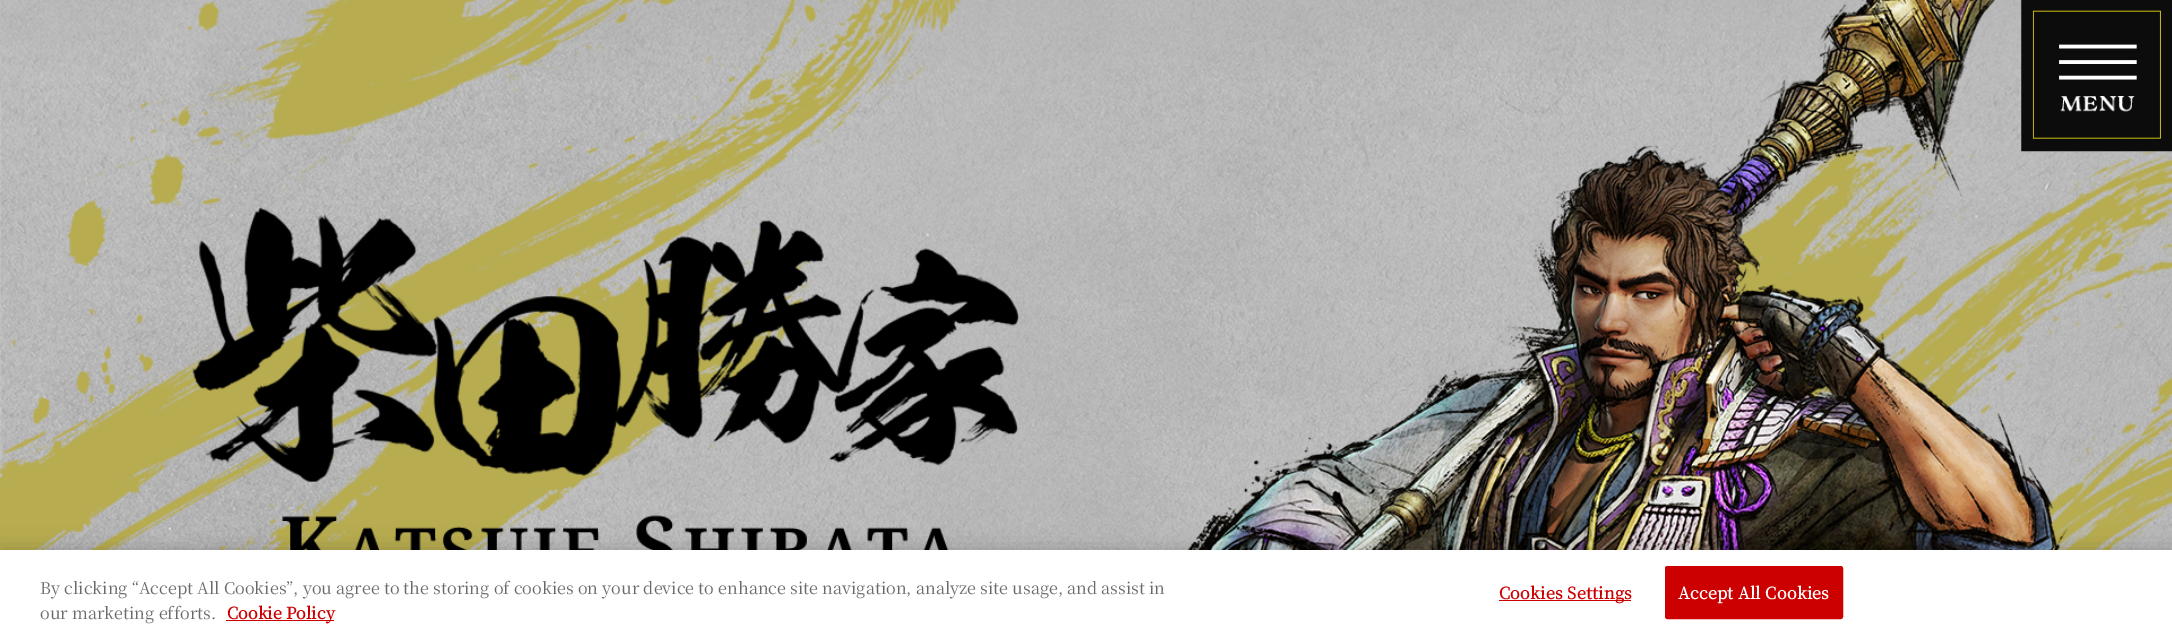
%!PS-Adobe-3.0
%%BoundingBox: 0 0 2172 638
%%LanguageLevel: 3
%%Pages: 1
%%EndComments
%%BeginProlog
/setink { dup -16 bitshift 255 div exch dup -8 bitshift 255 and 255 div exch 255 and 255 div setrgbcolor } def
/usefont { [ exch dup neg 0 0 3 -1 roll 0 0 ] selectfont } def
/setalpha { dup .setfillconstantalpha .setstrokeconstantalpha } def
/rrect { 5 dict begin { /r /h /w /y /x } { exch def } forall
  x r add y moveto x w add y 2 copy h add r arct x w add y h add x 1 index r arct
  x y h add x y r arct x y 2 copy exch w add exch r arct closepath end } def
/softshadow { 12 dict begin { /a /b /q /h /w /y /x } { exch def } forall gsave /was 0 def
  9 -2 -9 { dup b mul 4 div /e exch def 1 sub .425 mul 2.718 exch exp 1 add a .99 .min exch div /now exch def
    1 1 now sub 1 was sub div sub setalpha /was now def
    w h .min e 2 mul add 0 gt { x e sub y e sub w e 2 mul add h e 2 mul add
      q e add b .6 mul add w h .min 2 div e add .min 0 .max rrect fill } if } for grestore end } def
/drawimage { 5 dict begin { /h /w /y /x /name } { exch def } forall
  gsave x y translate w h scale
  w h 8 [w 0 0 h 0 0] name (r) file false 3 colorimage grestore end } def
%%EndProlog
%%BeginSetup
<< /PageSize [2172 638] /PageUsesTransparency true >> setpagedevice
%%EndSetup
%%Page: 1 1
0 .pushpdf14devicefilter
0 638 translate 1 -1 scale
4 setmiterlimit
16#FFFFFF setink
0 0 2172 638 rectfill
(img1.raw) 0 0 2172 550 drawimage
(img2.raw) 0 0 960 550 drawimage
(img3.raw) 192 207 828 343 drawimage
(img6.raw) 1718 139 454 411 drawimage
(img4.raw) 1187 0 881 550 drawimage
(img5.raw) 2021 0 151 152 drawimage
16#000000 setink
0 550 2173 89 0 11 0.2 softshadow
16#FFFFFF setink
0 550 2172 88 rectfill
/NotoSerifJP-ExtraLight 16.25 usefont
16#696969 setink
40 594 moveto (By clicking “Accept All Cookies”, you agree to the storing of cookies on your device to enhance site navigation, analyze site usage, and assist in) show
40 619 moveto (our marketing efforts.) show
16#CC0000 setink
226 620 108 1 rectfill
/NotoSerifJP-Bold 16.25 usefont
227 619 moveto (Cookie Policy) show
1499 600 132 1 rectfill
1499 599 moveto 0.2 0 (Cookies Settings) ashow
1665.5 566.5 177 52 2 rrect gsave fill grestore
stroke
16#FFFFFF setink
1678 599 moveto 0.2 0 (Accept All Cookies) ashow
.poppdf14devicefilter showpage
%%EOF
